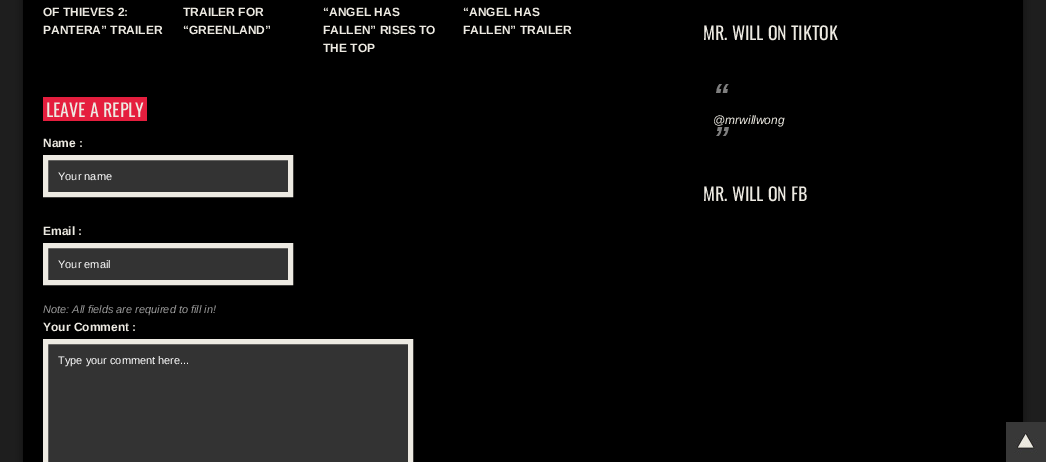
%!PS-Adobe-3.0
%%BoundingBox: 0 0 1046 462
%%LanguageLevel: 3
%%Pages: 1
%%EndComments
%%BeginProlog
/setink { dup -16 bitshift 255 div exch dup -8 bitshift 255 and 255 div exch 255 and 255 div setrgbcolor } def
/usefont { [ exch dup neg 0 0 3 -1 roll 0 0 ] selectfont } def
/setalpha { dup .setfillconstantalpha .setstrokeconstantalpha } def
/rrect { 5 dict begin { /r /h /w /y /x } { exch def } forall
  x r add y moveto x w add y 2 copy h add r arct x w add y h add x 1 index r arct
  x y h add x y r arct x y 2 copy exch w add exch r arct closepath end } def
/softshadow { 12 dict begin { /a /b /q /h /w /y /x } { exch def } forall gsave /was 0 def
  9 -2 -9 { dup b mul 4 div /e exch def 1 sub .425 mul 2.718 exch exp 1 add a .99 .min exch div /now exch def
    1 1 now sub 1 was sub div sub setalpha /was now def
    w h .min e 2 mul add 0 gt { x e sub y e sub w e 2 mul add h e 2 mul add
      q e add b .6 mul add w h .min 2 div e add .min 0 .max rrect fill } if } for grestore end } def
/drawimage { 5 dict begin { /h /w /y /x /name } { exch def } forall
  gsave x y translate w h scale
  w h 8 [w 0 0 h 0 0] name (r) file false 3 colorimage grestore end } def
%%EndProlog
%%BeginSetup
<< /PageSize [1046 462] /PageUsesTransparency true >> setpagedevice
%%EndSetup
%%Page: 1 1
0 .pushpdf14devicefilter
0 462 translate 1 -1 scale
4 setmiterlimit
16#1E1E1E setink
0 0 1046 462 rectfill
16#000000 setink
23 -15 1000 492 0 5 0.5 softshadow
23 0 1000 462 rectfill
/LiberationSans-Bold 12 usefont
16#EDEAE2 setink
[
    [(OF THIEVES 2:) 43 16]
    [(PANTERA” TRAILER) 43 34]
    [(TRAILER FOR) 183 16]
    [(“GREENLAND”) 183 34]
    [(“ANGEL HAS) 323 16]
    [(FALLEN” RISES TO) 323 34]
    [(THE TOP) 323 52]
    [(“ANGEL HAS) 463 16]
    [(FALLEN” TRAILER) 463 34]
] { aload pop moveto show } forall
16#E51E3E setink
43 97 104 24 rectfill
/Oswald-Regular 18 usefont
16#EDEAE2 setink
46 117 moveto (LEAVE A REPLY) show
/LiberationSans-Bold 12 usefont
43 147 moveto (Name :) show
16#333333 setink
45.5 157.5 moveto 290.5 157.5 lineto 290.5 194.5 lineto 45.5 194.5 lineto closepath gsave fill grestore
16#EDEAE2 setink
5 setlinewidth
stroke
/LiberationSans-Regular 11 usefont
16#FFFFFF setink
58 180 moveto (Your name) show
/LiberationSans-Bold 12 usefont
16#EDEAE2 setink
43 235 moveto (Email :) show
16#333333 setink
45.5 245.5 moveto 290.5 245.5 lineto 290.5 282.5 lineto 45.5 282.5 lineto closepath gsave fill grestore
16#EDEAE2 setink
stroke
/LiberationSans-Regular 11 usefont
16#FFFFFF setink
58 268 moveto (Your email) show
/LiberationSans-Italic 11 usefont
16#999999 setink
43 313 moveto (Note: All fields are required to fill in!) show
/LiberationSans-Bold 12 usefont
16#EDEAE2 setink
43 331 moveto (Your Comment :) show
16#333333 setink
45.5 341.5 moveto 410.5 341.5 lineto 410.5 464.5 lineto 45.5 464.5 lineto closepath gsave fill grestore
16#EDEAE2 setink
stroke
/LiberationSans-Regular 11 usefont
16#FFFFFF setink
58 364 moveto (Type your comment here...) show
/Oswald-Regular 18 usefont
16#EDEAE2 setink
703 40 moveto (MR. WILL ON TIKTOK) show
/LiberationSans-BoldItalic 32 usefont
16#7E7E7E setink
713 106 moveto (“) show
/LiberationSans-Italic 12 usefont
16#EDEAE2 setink
713 124 moveto (@mrwillwong) show
/LiberationSans-BoldItalic 32 usefont
16#7E7E7E setink
713 149 moveto (”) show
/Oswald-Regular 18 usefont
16#EDEAE2 setink
703 201 moveto (MR. WILL ON FB) show
(img1.raw) 1006 422 40 40 drawimage
.poppdf14devicefilter showpage
%%EOF
